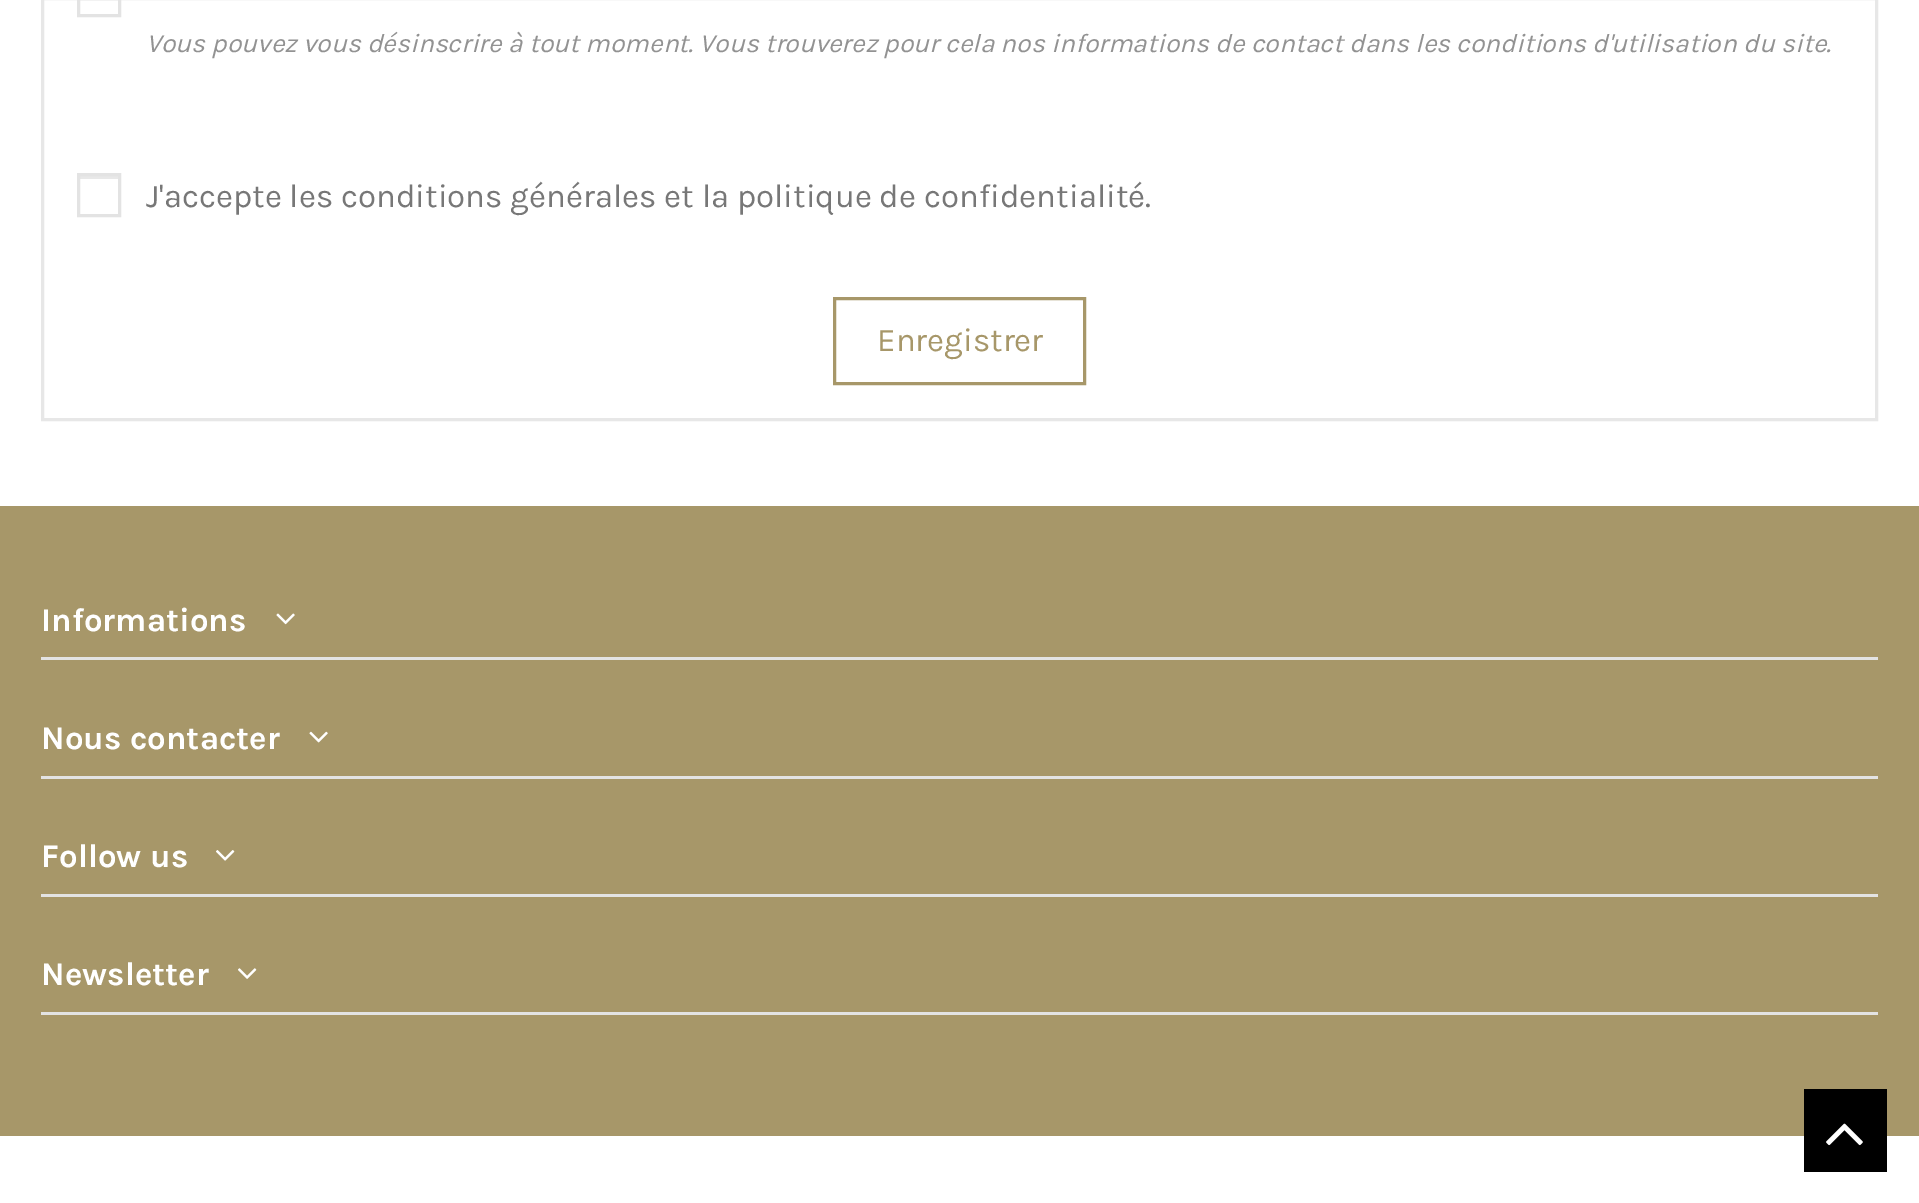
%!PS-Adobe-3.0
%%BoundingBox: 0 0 1919 1203
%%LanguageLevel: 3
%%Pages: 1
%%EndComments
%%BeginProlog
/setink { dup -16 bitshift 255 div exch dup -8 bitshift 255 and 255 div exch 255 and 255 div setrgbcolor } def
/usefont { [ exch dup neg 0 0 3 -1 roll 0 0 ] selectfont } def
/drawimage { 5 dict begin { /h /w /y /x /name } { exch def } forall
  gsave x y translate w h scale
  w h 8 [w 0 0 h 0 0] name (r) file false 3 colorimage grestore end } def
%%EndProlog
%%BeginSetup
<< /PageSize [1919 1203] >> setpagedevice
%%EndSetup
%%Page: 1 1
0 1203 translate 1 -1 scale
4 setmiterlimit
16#FFFFFF setink
0 0 1919 1203 rectfill
16#E7E7E7 setink
3 setlinewidth
42.5 -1.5 1834 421 rectstroke
16#E3E3E3 setink
78.5 -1.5 41 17 rectstroke
/Karla-Italic 26.4 usefont
16#929292 setink
146 52 moveto (Vous pouvez vous désinscrire à tout moment. Vous trouverez pour cela nos informations de contact dans les conditions d'utilisation du site.) show
16#E8E8E8 setink
80 176 38 3 rectfill
16#E3E3E3 setink
78.5 174.5 41 41 rectstroke
/Karla-Regular 33 usefont
16#777777 setink
146 207 moveto (J'accepte les conditions générales et la politique de confidentialité.) show
16#A79769 setink
834.5 298.5 250 85 rectstroke
877 351 moveto (Enregistrer) show
0 506 1919 630 rectfill
16#E3E3E3 setink
41 657 1837 3 rectfill
/Karla-Bold 33 usefont
16#FFFFFF setink
41 631 moveto (Informations) show
(img1.raw) 276 613 19 12 drawimage
16#E3E3E3 setink
41 776 1837 3 rectfill
16#FFFFFF setink
41 749 moveto (Nous contacter) show
(img2.raw) 309 731 19 12 drawimage
16#E3E3E3 setink
41 894 1837 3 rectfill
16#FFFFFF setink
41 867 moveto (Follow us) show
(img3.raw) 216 850 19 11 drawimage
16#E3E3E3 setink
41 1012 1837 3 rectfill
16#FFFFFF setink
41 985 moveto (Newsletter) show
(img4.raw) 238 968 19 11 drawimage
16#000000 setink
1804 1089 83 83 rectfill
(img5.raw) 1826 1123 37 23 drawimage
showpage
%%EOF
